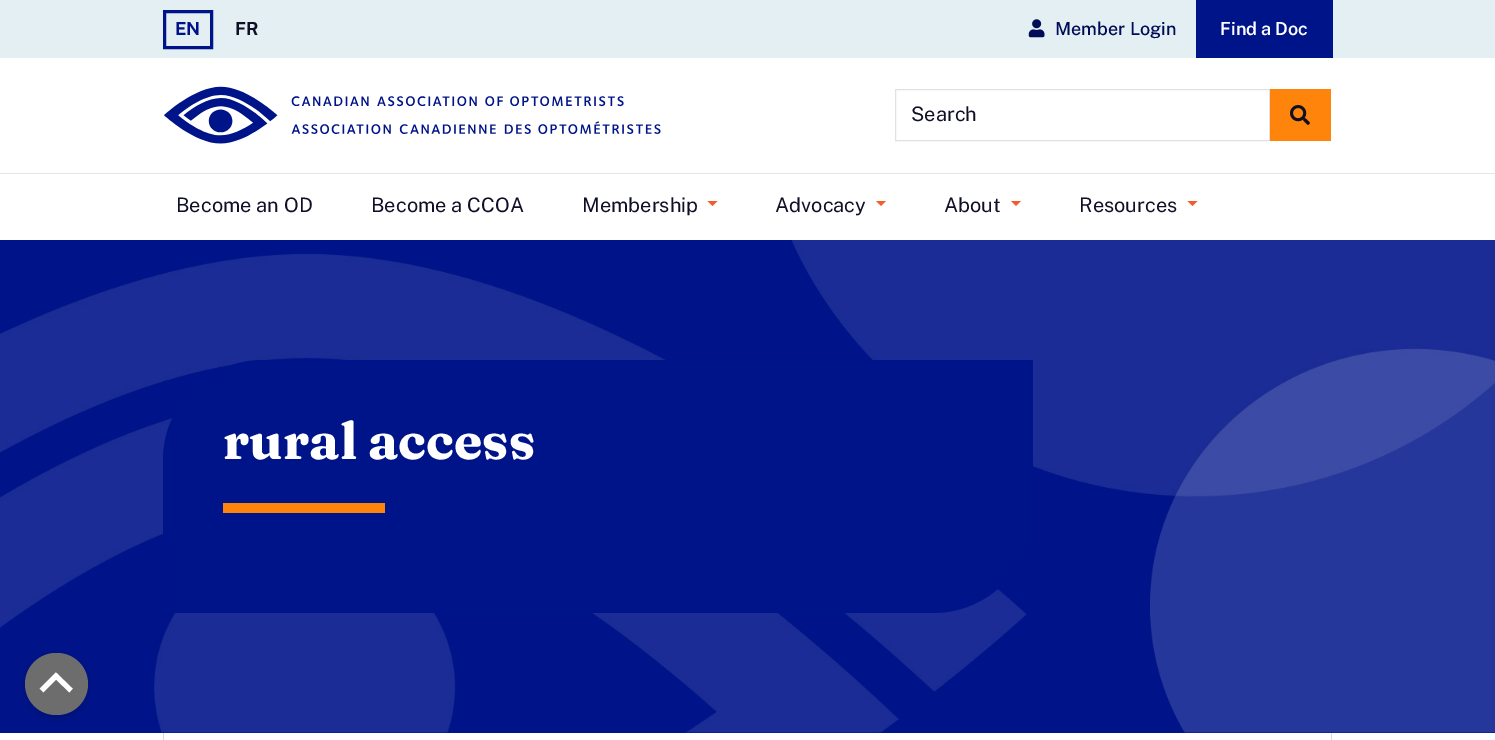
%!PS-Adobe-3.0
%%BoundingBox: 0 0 1495 740
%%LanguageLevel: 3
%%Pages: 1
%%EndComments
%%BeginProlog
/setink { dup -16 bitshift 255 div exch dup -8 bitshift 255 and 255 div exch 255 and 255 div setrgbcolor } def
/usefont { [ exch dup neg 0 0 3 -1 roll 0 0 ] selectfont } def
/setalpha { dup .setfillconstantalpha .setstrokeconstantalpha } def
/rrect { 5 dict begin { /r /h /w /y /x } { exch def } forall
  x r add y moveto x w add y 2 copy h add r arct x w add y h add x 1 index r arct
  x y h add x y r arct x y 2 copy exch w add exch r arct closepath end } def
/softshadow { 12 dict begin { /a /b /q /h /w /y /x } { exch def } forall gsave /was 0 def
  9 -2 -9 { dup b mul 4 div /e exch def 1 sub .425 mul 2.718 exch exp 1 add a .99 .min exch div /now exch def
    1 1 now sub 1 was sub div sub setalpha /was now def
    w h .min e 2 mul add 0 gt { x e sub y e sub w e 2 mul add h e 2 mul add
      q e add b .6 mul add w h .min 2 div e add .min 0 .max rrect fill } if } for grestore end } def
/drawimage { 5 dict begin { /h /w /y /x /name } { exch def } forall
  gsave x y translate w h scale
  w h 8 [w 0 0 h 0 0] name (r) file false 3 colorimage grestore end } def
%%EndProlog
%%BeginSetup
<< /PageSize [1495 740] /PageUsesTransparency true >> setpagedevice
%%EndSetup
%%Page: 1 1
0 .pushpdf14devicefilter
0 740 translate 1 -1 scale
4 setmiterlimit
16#FFFFFF setink
0 0 1495 740 rectfill
16#E4EFF3 setink
0 0 1495 58 rectfill
16#001489 setink
3 setlinewidth
164.5 11.5 47 36 rectstroke
/PublicSans-Bold 18 usefont
175 35 moveto (EN) show
16#0F0F26 setink
235 35 moveto (FR) show
(img1.raw) 1028 19 17 19 drawimage
/PublicSans-Medium 18 usefont
16#000D56 setink
1055 35 moveto (Member Login) show
16#001489 setink
1196 0 137 58 rectfill
/PublicSans-SemiBold 18 usefont
16#FFFFFF setink
1220 35 moveto (Find a Doc) show
(img2.raw) 164 86 497 58 drawimage
16#DEE2E6 setink
1 setlinewidth
895.5 89.5 374 51 rectstroke
/PublicSans-Regular 20 usefont
16#0F0F26 setink
911 121 moveto (Search) show
16#FF840B setink
1270 89 61 52 rectfill
(img3.raw) 1290 105 20 20 drawimage
16#E6E6E6 setink
0 173 1495 1 rectfill
16#0F0F26 setink
[
    [(Become an OD) 176 212]
    [(Become a CCOA) 371 212]
    [(Membership) 582 212]
] { aload pop moveto show } forall
16#F35C2C setink
707.5 201 moveto 717.5 201 lineto 712.5 206 lineto closepath fill
16#0F0F26 setink
775 212 moveto (Advocacy) show
16#F35C2C setink
876 201 moveto 886 201 lineto 881 206 lineto closepath fill
16#0F0F26 setink
944 212 moveto (About) show
16#F35C2C setink
1011 201 moveto 1021 201 lineto 1016 206 lineto closepath fill
16#0F0F26 setink
1079 212 moveto (Resources) show
16#F35C2C setink
1187.5 201 moveto 1197.5 201 lineto 1192.5 206 lineto closepath fill
16#001489 setink
0 732 1495 1 rectfill
(img4.raw) 0 240 1495 493 drawimage
16#000000 setink
25 655 63 63 31.5 3 0.15 softshadow
16#6D6D6D setink
25 653 63 62 31 rrect fill
16#FFFFFF setink
5 setlinewidth
71 690.5 moveto 56 676 lineto 41.5 690.5 lineto stroke
16#001489 setink
263 360 moveto 1033 360 lineto 1033 513 lineto 1033 568 988 613 933 613 curveto 163 613 lineto 163 460 lineto 163 405 208 360 263 360 curveto closepath fill
/Fraunces-Bold 52 usefont
16#FFFFFF setink
223 459 moveto (rural access) show
[
    [223 503 162 10 16#FF840B]
    [1331 733 1 7 16#D8D8D8]
    [163 733 1 7 16#D8D8D8]
] { aload pop setink rectfill } forall
.poppdf14devicefilter showpage
%%EOF
